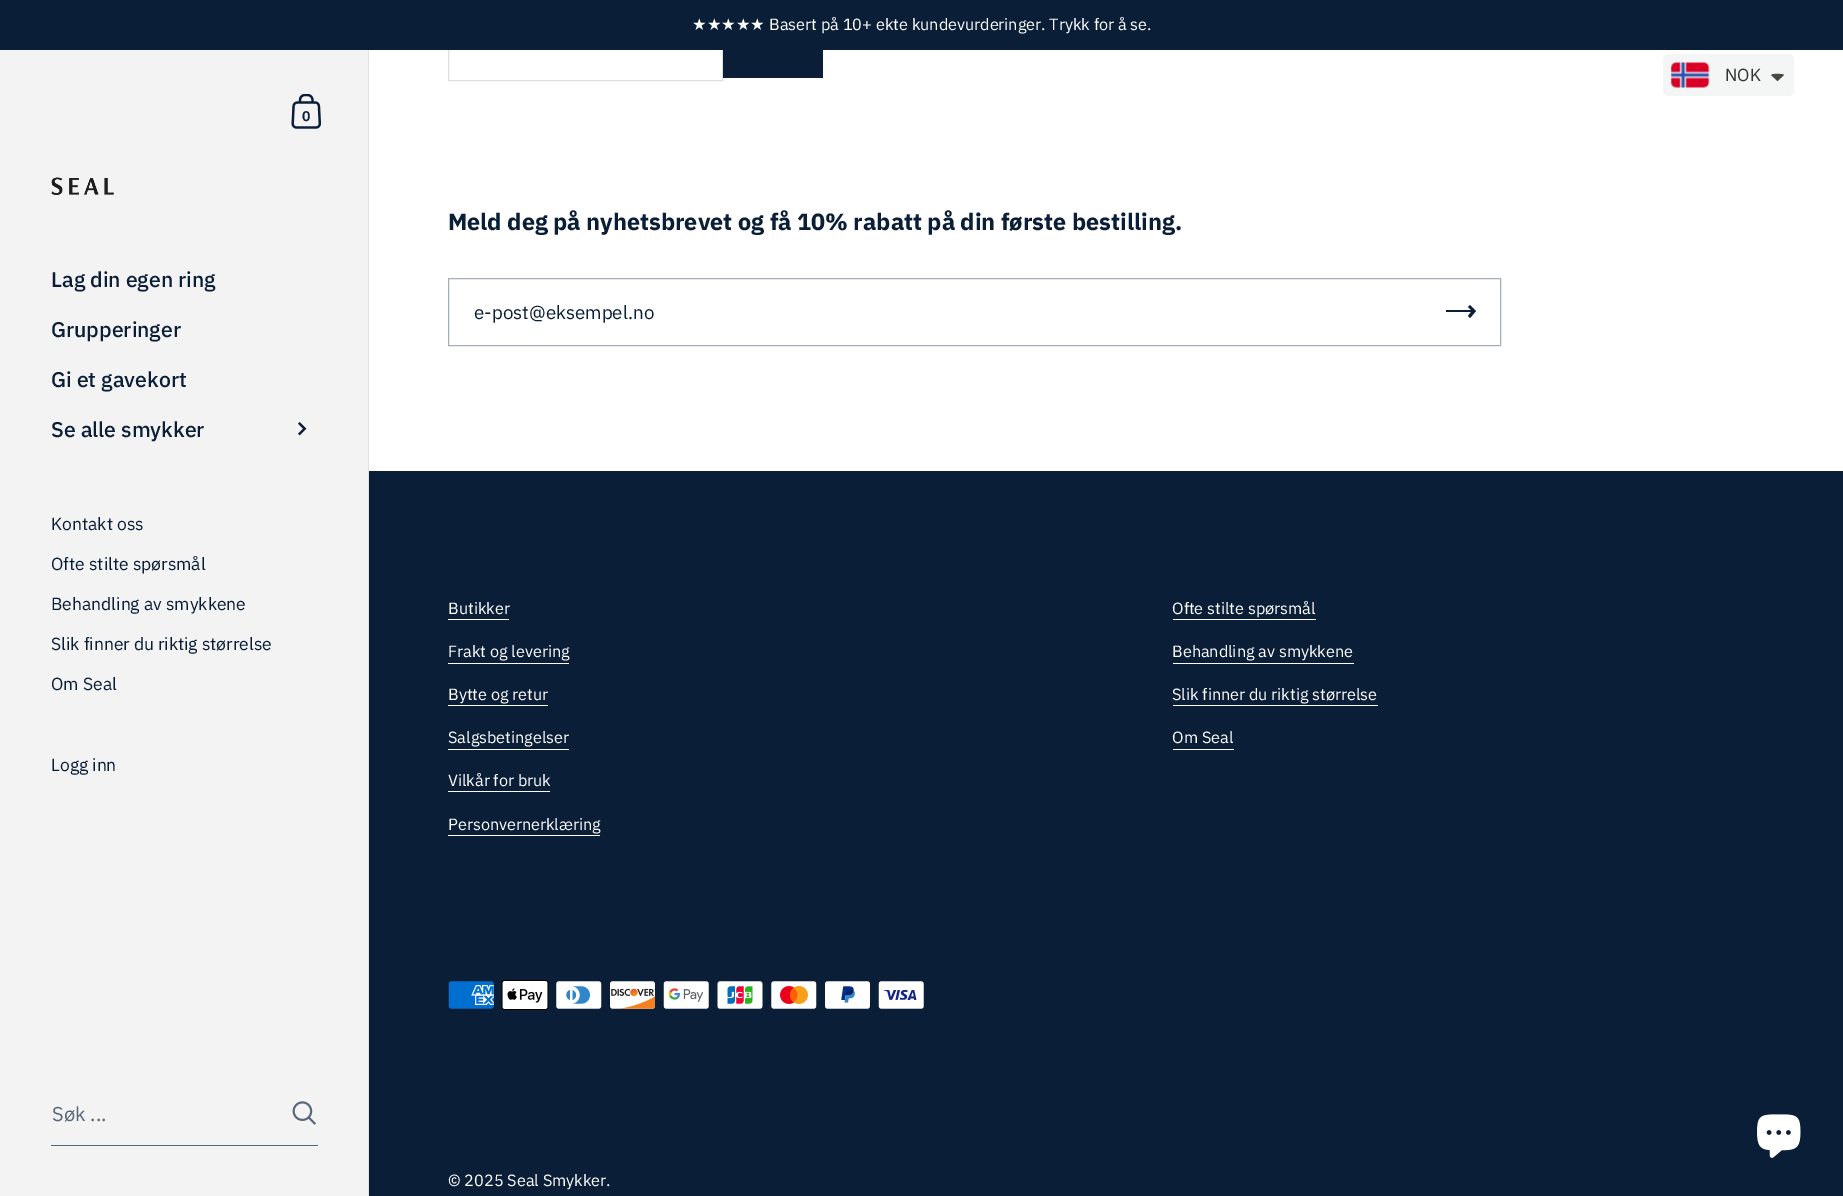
%!PS-Adobe-3.0
%%BoundingBox: 0 0 1843 1196
%%LanguageLevel: 3
%%Pages: 1
%%EndComments
%%BeginProlog
/setink { dup -16 bitshift 255 div exch dup -8 bitshift 255 and 255 div exch 255 and 255 div setrgbcolor } def
/usefont { [ exch dup neg 0 0 3 -1 roll 0 0 ] selectfont } def
/rrect { 5 dict begin { /r /h /w /y /x } { exch def } forall
  x r add y moveto x w add y 2 copy h add r arct x w add y h add x 1 index r arct
  x y h add x y r arct x y 2 copy exch w add exch r arct closepath end } def
/drawimage { 5 dict begin { /h /w /y /x /name } { exch def } forall
  gsave x y translate w h scale
  w h 8 [w 0 0 h 0 0] name (r) file false 3 colorimage grestore end } def
%%EndProlog
%%BeginSetup
<< /PageSize [1843 1196] >> setpagedevice
%%EndSetup
%%Page: 1 1
0 1196 translate 1 -1 scale
4 setmiterlimit
16#FFFFFF setink
0 0 1843 1196 rectfill
16#DDE0E3 setink
448.5 13.5 274 67 rectstroke
16#0A1E37 setink
0 0 1843 50 rectfill
/DejaVuSans-Regular 16.25 usefont
16#FFFFFF setink
692 30 moveto (★★★★★) show
/IBMPlexSans-Regular 16.25 usefont
769 30 moveto (Basert på 10+ ekte kundevurderinger. Trykk for å se.) show
16#F3F6F4 setink
1663 54 131 42 6 rrect fill
(img1.raw) 1671 62 39 26 drawimage
/IBMPlexSans-Regular 17.5 usefont
16#333333 setink
1725 81 moveto (NOK) show
16#474942 setink
1774 74 moveto 1776.5 74 1782 73.5 1784 75 curveto 1777.5 81 lineto 1771 75 lineto 1772 74.5 1773 74 1774 74 curveto closepath fill
16#F3F3F3 setink
0 50 368 1146 rectfill
16#E0E2E4 setink
368 50 1 1146 rectfill
(img2.raw) 291 94 30 35 drawimage
/IBMPlexSans-SemiBold 14 usefont
16#0A1E37 setink
302 121 moveto (0) show
(img3.raw) 51 177 63 18 drawimage
/IBMPlexSans-Medium 21.25 usefont
[
    [(Lag din egen ring) 51 287]
    [(Grupperinger) 51 337]
    [(Gi et gavekort) 51 387]
    [(Se alle smykker) 51 437]
] { aload pop moveto show } forall
(img4.raw) 298 422 9 14 drawimage
/IBMPlexSans-Regular 17.5 usefont
[
    [(Kontakt oss) 51 530]
    [(Ofte stilte spørsmål) 51 570]
    [(Behandling av smykkene) 51 610]
    [(Slik finner du riktig størrelse) 51 650]
    [(Om Seal) 51 690]
    [(Logg inn) 51 771]
] { aload pop moveto show } forall
16#596677 setink
51 1145 267 1 rectfill
/IBMPlexSans-Regular 20 usefont
52 1121 moveto (Søk ...) show
(img5.raw) 292 1101 24 24 drawimage
16#0A1E37 setink
723 50 100 28 rectfill
/IBMPlexSans-Bold 23.45 usefont
448 230 moveto (Meld deg på nyhetsbrevet og få 10% rabatt på din første bestilling.) show
16#A7AEB7 setink
448.5 278.5 1052 67 rectstroke
/IBMPlexSans-Regular 18.75 usefont
16#0A1E37 setink
474 319 moveto (e-post@eksempel.no) show
gsave
1446 305 30 14 rectclip
1471 312 moveto 1468 316 lineto 1470 318 lineto 1476 311 lineto 1470 305 lineto 1468 307 lineto 1471 310 lineto 1434 310 lineto 1434 312 lineto closepath eofill
grestore
369 471 1474 725 rectfill
/IBMPlexSans-Regular 16.25 usefont
16#FFFFFF setink
448 614 moveto (Butikker) show
448 619 61 1 rectfill
448 657 moveto (Frakt og levering) show
448 663 121 1 rectfill
448 700 moveto (Bytte og retur) show
448 705 100 1 rectfill
448 743 moveto (Salgsbetingelser) show
448 749 121 1 rectfill
448 786 moveto (Vilkår for bruk) show
448 791 102 1 rectfill
448 830 moveto (Personvernerklæring) show
448 835 152 1 rectfill
1172 614 moveto (Ofte stilte spørsmål) show
1173 619 143 1 rectfill
1172 657 moveto (Behandling av smykkene) show
1173 663 181 1 rectfill
1172 700 moveto (Slik finner du riktig størrelse) show
1173 705 205 1 rectfill
1172 743 moveto (Om Seal) show
1173 749 61 1 rectfill
(img6.raw) 448 981 46 28 drawimage
(img7.raw) 501 980 48 30 drawimage
(img8.raw) 556 981 46 28 drawimage
(img9.raw) 610 981 46 28 drawimage
(img10.raw) 663 981 46 28 drawimage
(img11.raw) 717 981 46 28 drawimage
(img12.raw) 771 981 46 28 drawimage
(img13.raw) 825 981 45 28 drawimage
(img14.raw) 878 981 46 28 drawimage
448 1186 moveto (© 2025 Seal Smykker.) show
(img15.raw) 1757 1114 44 44 drawimage
showpage
%%EOF
